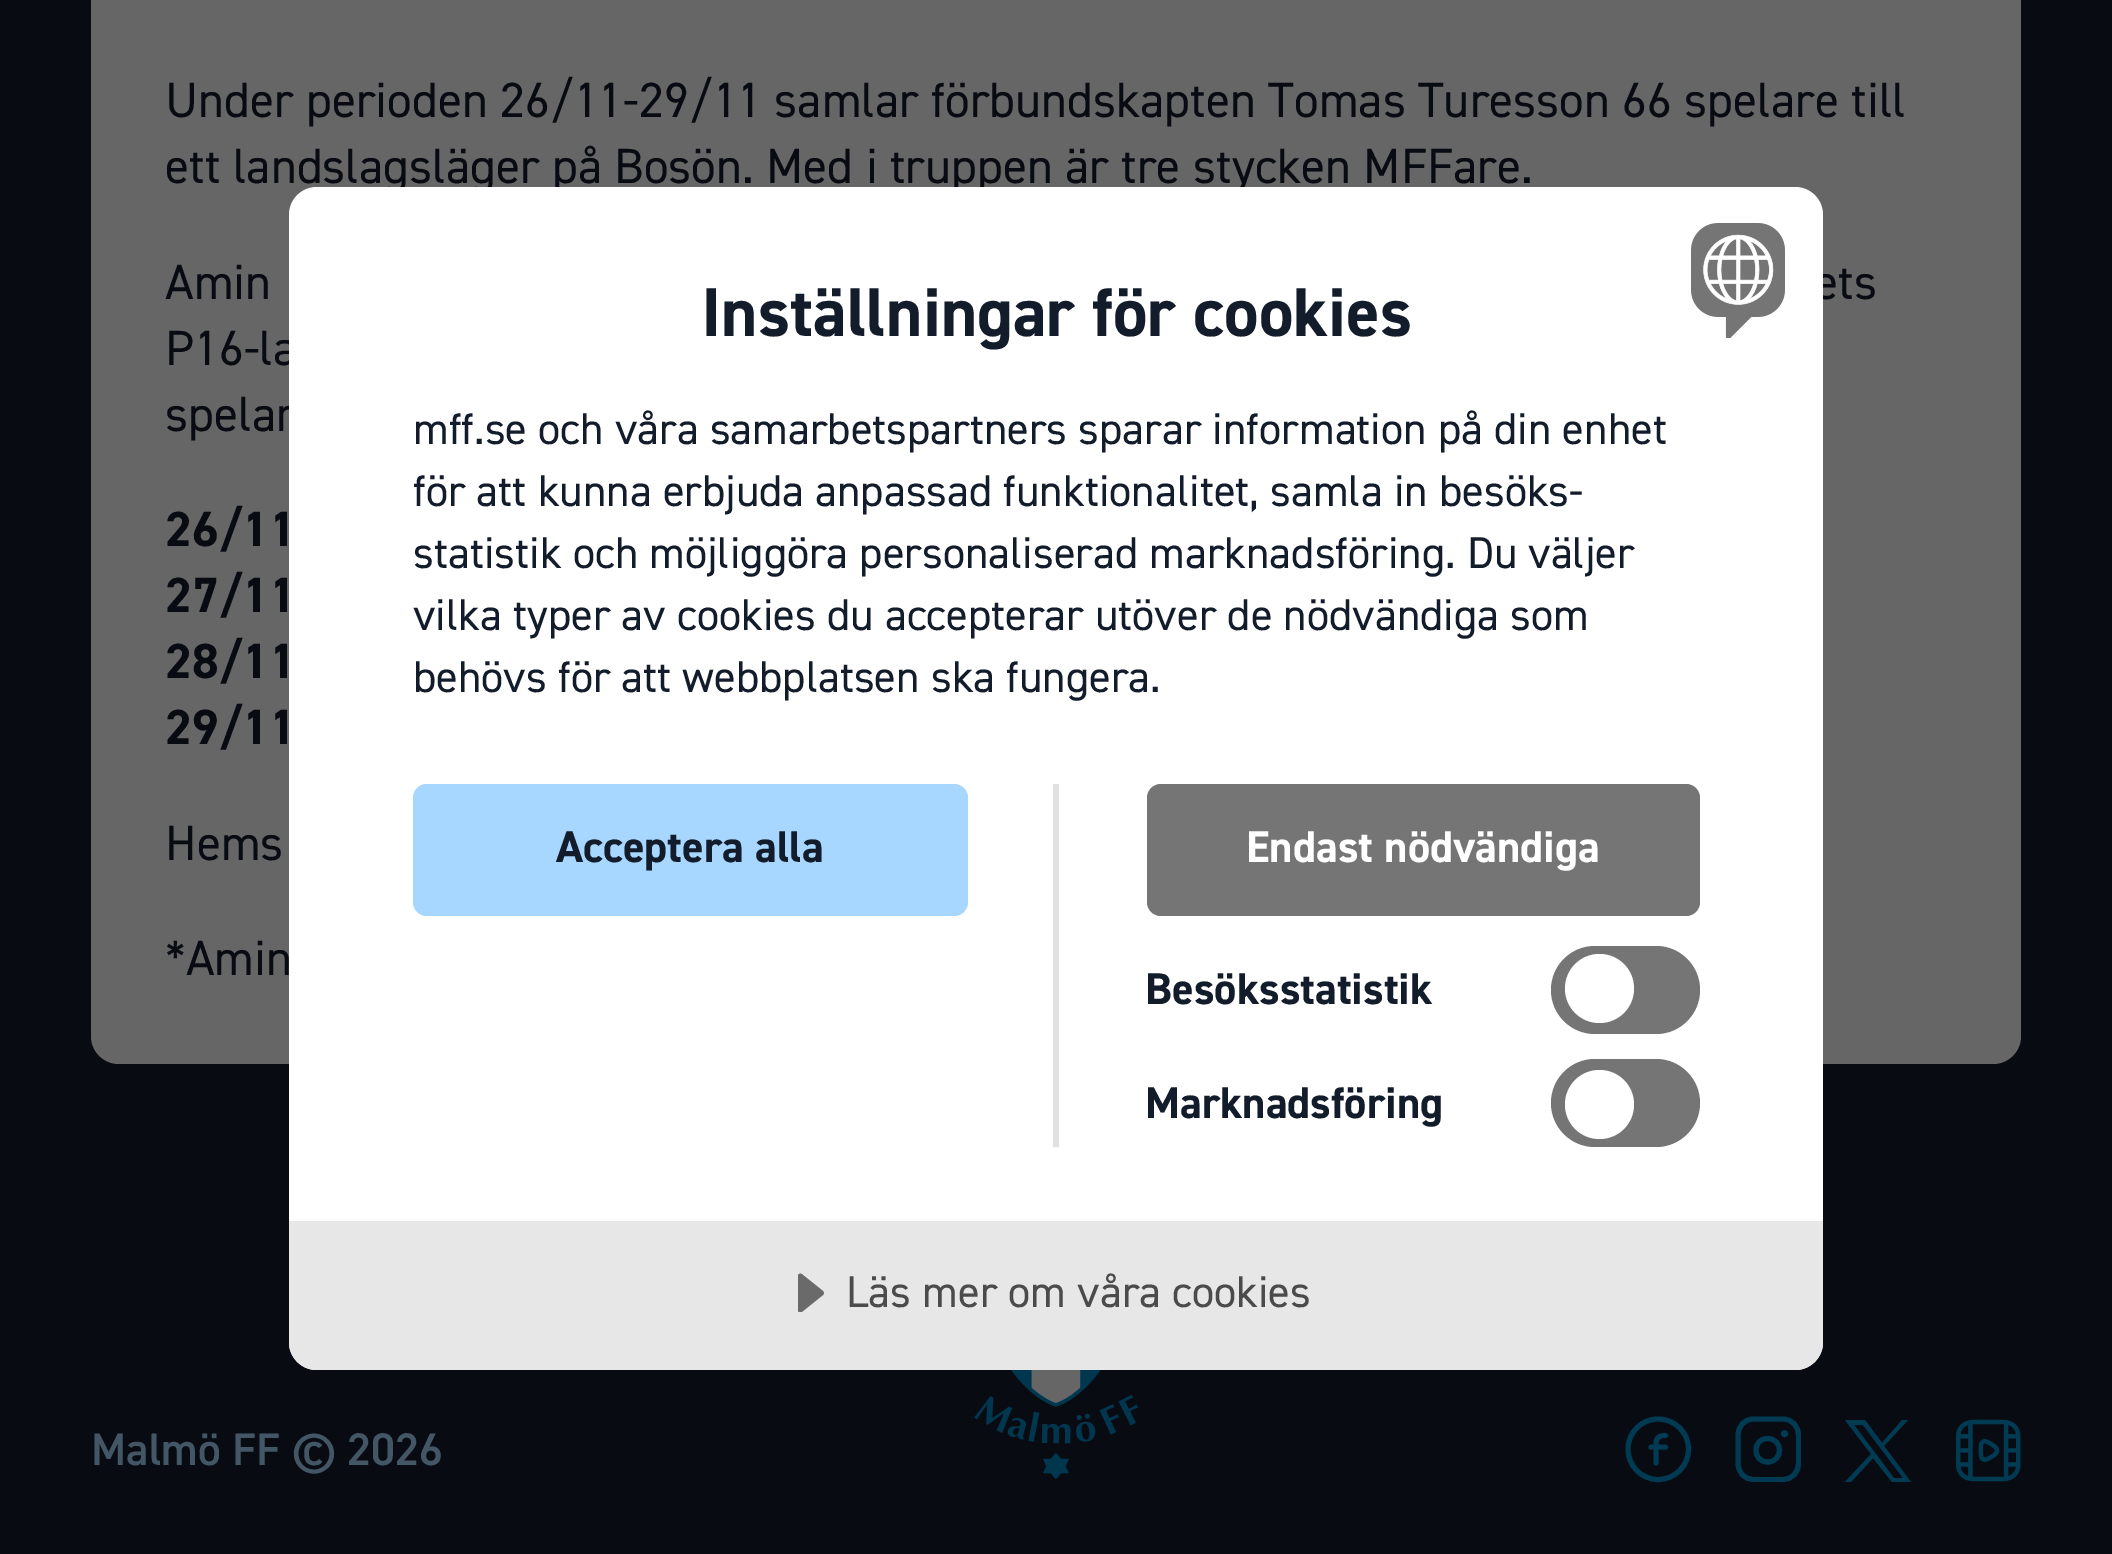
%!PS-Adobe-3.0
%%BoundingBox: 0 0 2112 1554
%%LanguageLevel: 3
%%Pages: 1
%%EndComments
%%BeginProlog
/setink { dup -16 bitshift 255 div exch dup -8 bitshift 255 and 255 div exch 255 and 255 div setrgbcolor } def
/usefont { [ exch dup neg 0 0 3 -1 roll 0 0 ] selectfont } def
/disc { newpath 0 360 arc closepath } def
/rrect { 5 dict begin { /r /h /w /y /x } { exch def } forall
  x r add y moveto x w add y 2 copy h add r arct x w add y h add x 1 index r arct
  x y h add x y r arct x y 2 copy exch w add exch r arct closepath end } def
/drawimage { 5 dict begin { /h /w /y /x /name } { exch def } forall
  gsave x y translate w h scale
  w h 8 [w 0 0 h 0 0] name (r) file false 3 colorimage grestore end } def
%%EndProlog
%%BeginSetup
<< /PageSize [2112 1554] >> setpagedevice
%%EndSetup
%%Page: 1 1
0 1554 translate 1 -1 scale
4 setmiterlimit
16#080B11 setink
0 0 2112 1554 rectfill
16#666666 setink
91 -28 1930 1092 28 rrect fill
/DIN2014-Regular 49.5 usefont
16#080B11 setink
[
    [(Under perioden 26/11-29/11 samlar förbundskapten Tomas Turesson 66 spelare till) 165 117]
    [(ett landslagsläger på Bosön. Med i truppen är tre stycken MFFare.) 165 183]
    [(Amin) 165 299]
    [(ets) 1814 299]
    [(P16-la) 165 365]
    [(spelar) 165 431]
] { aload pop moveto show } forall
/DIN2014-Bold 49.5 usefont
[
    [(26/11) 165 546]
    [(27/11) 165 612]
    [(28/11) 165 678]
    [(29/11) 165 744]
] { aload pop moveto show } forall
/DIN2014-Regular 49.5 usefont
165 860 moveto (Hems) show
165 975 moveto (*Amin) show
16#FFFFFF setink
289 187 1534 1183 28 rrect fill
/DIN2014-Bold 69.25 usefont
16#131C2A setink
701 336 moveto (Inställningar för cookies) show
/DIN2014-Regular 44.55 usefont
[
    [(mff.se och våra samarbetspartners sparar information på din enhet) 413 444]
    [(för att kunna erbjuda anpassad funktionalitet, samla in besöks-) 413 506]
    [(statistik och möjliggöra personaliserad marknadsföring. Du väljer) 413 568]
    [(vilka typer av cookies du accepterar utöver de nödvändiga som) 413 630]
    [(behövs för att webbplatsen ska fungera.) 413 692]
] { aload pop moveto show } forall
16#E0E0E0 setink
1053 784 6 363 rectfill
16#A7D7FF setink
413 784 555 132 14 rrect fill
/DIN2014-Bold 44.55 usefont
16#131C2A setink
556 862 moveto (Acceptera alla) show
16#757575 setink
1147 784 553 132 14 rrect fill
16#FFFFFF setink
1246 862 moveto (Endast nödvändiga) show
16#131C2A setink
1145 1004 moveto (Besöksstatistik) show
16#757575 setink
1551 946 149 88 44 rrect fill
16#FFFFFF setink
1599.5 988.5 34.5 disc fill
16#131C2A setink
1145 1118 moveto (Marknadsföring) show
16#757575 setink
1551 1059 149 88 44 rrect fill
16#FFFFFF setink
1599.5 1104.5 34.5 disc fill
(img1.raw) 1691 223 94 115 drawimage
16#E7E7E7 setink
289 1221 moveto 1823 1221 lineto 1823 1342 lineto 1823 1357.5 1810.5 1370 1795 1370 curveto 317 1370 lineto 301.5 1370 289 1357.5 289 1342 curveto closepath fill
(img2.raw) 798 1273 26 39 drawimage
/DIN2014-Regular 44.55 usefont
16#4B4B4B setink
846 1307 moveto (Läs mer om våra cookies) show
/DIN2014-SemiBold 45.75 usefont
16#435666 setink
91 1465 moveto (Malmö FF © 2026) show
(img3.raw) 974 1370 165 110 drawimage
16#003A53 setink
5.1 setlinewidth
1 setlinecap
1 setlinejoin
1665.5 1435.5 moveto 1655 1435.5 1656 1441 1656 1449.5 curveto 1656 1463 lineto 1651 1447 moveto 1665.5 1447 lineto 1658 1479.5 moveto 1675 1479.5 1688.5 1466 1688.5 1449 curveto 1688.5 1432.5 1675 1419 1658 1419 curveto 1641.5 1419 1628 1432.5 1628 1449 curveto 1628 1466 1641.5 1479.5 1658 1479.5 curveto closepath stroke
gsave
1735 1416 66 66 rectclip
1784.5 1433.5 moveto 1784.5 1434 lineto 1754 1419 moveto 1782.5 1419 lineto 1792.5 1419 1798.5 1426 1798.5 1436 curveto 1798.5 1462.5 lineto 1798.5 1472.5 1792.5 1479.5 1782.5 1479.5 curveto 1754 1479.5 lineto 1744 1479.5 1738 1472.5 1738 1462.5 curveto 1738 1436 lineto 1738 1426 1744 1419 1754 1419 curveto closepath 1767.5 1438.5 moveto 1752 1438.5 1752 1462 1767.5 1462 curveto 1783.5 1462 1783.5 1438.5 1767.5 1438.5 curveto closepath 1785.5 1433.5 moveto 1785.5 1435 1783.5 1435 1783.5 1433.5 curveto 1783.5 1432.5 1785.5 1432.5 1785.5 1433.5 curveto closepath stroke
grestore
1845 1420 moveto 1871 1454 lineto 1845 1482 lineto 1851 1482 lineto 1873 1458 lineto 1892 1482 lineto 1911 1482 lineto 1884 1446 lineto 1908 1420 lineto 1902 1420 lineto 1882 1443 lineto 1865 1420 lineto closepath 1854 1425 moveto 1863 1425 lineto 1903 1478 lineto 1894 1478 lineto closepath fill
(img4.raw) 1956 1419 65 63 drawimage
showpage
%%EOF
